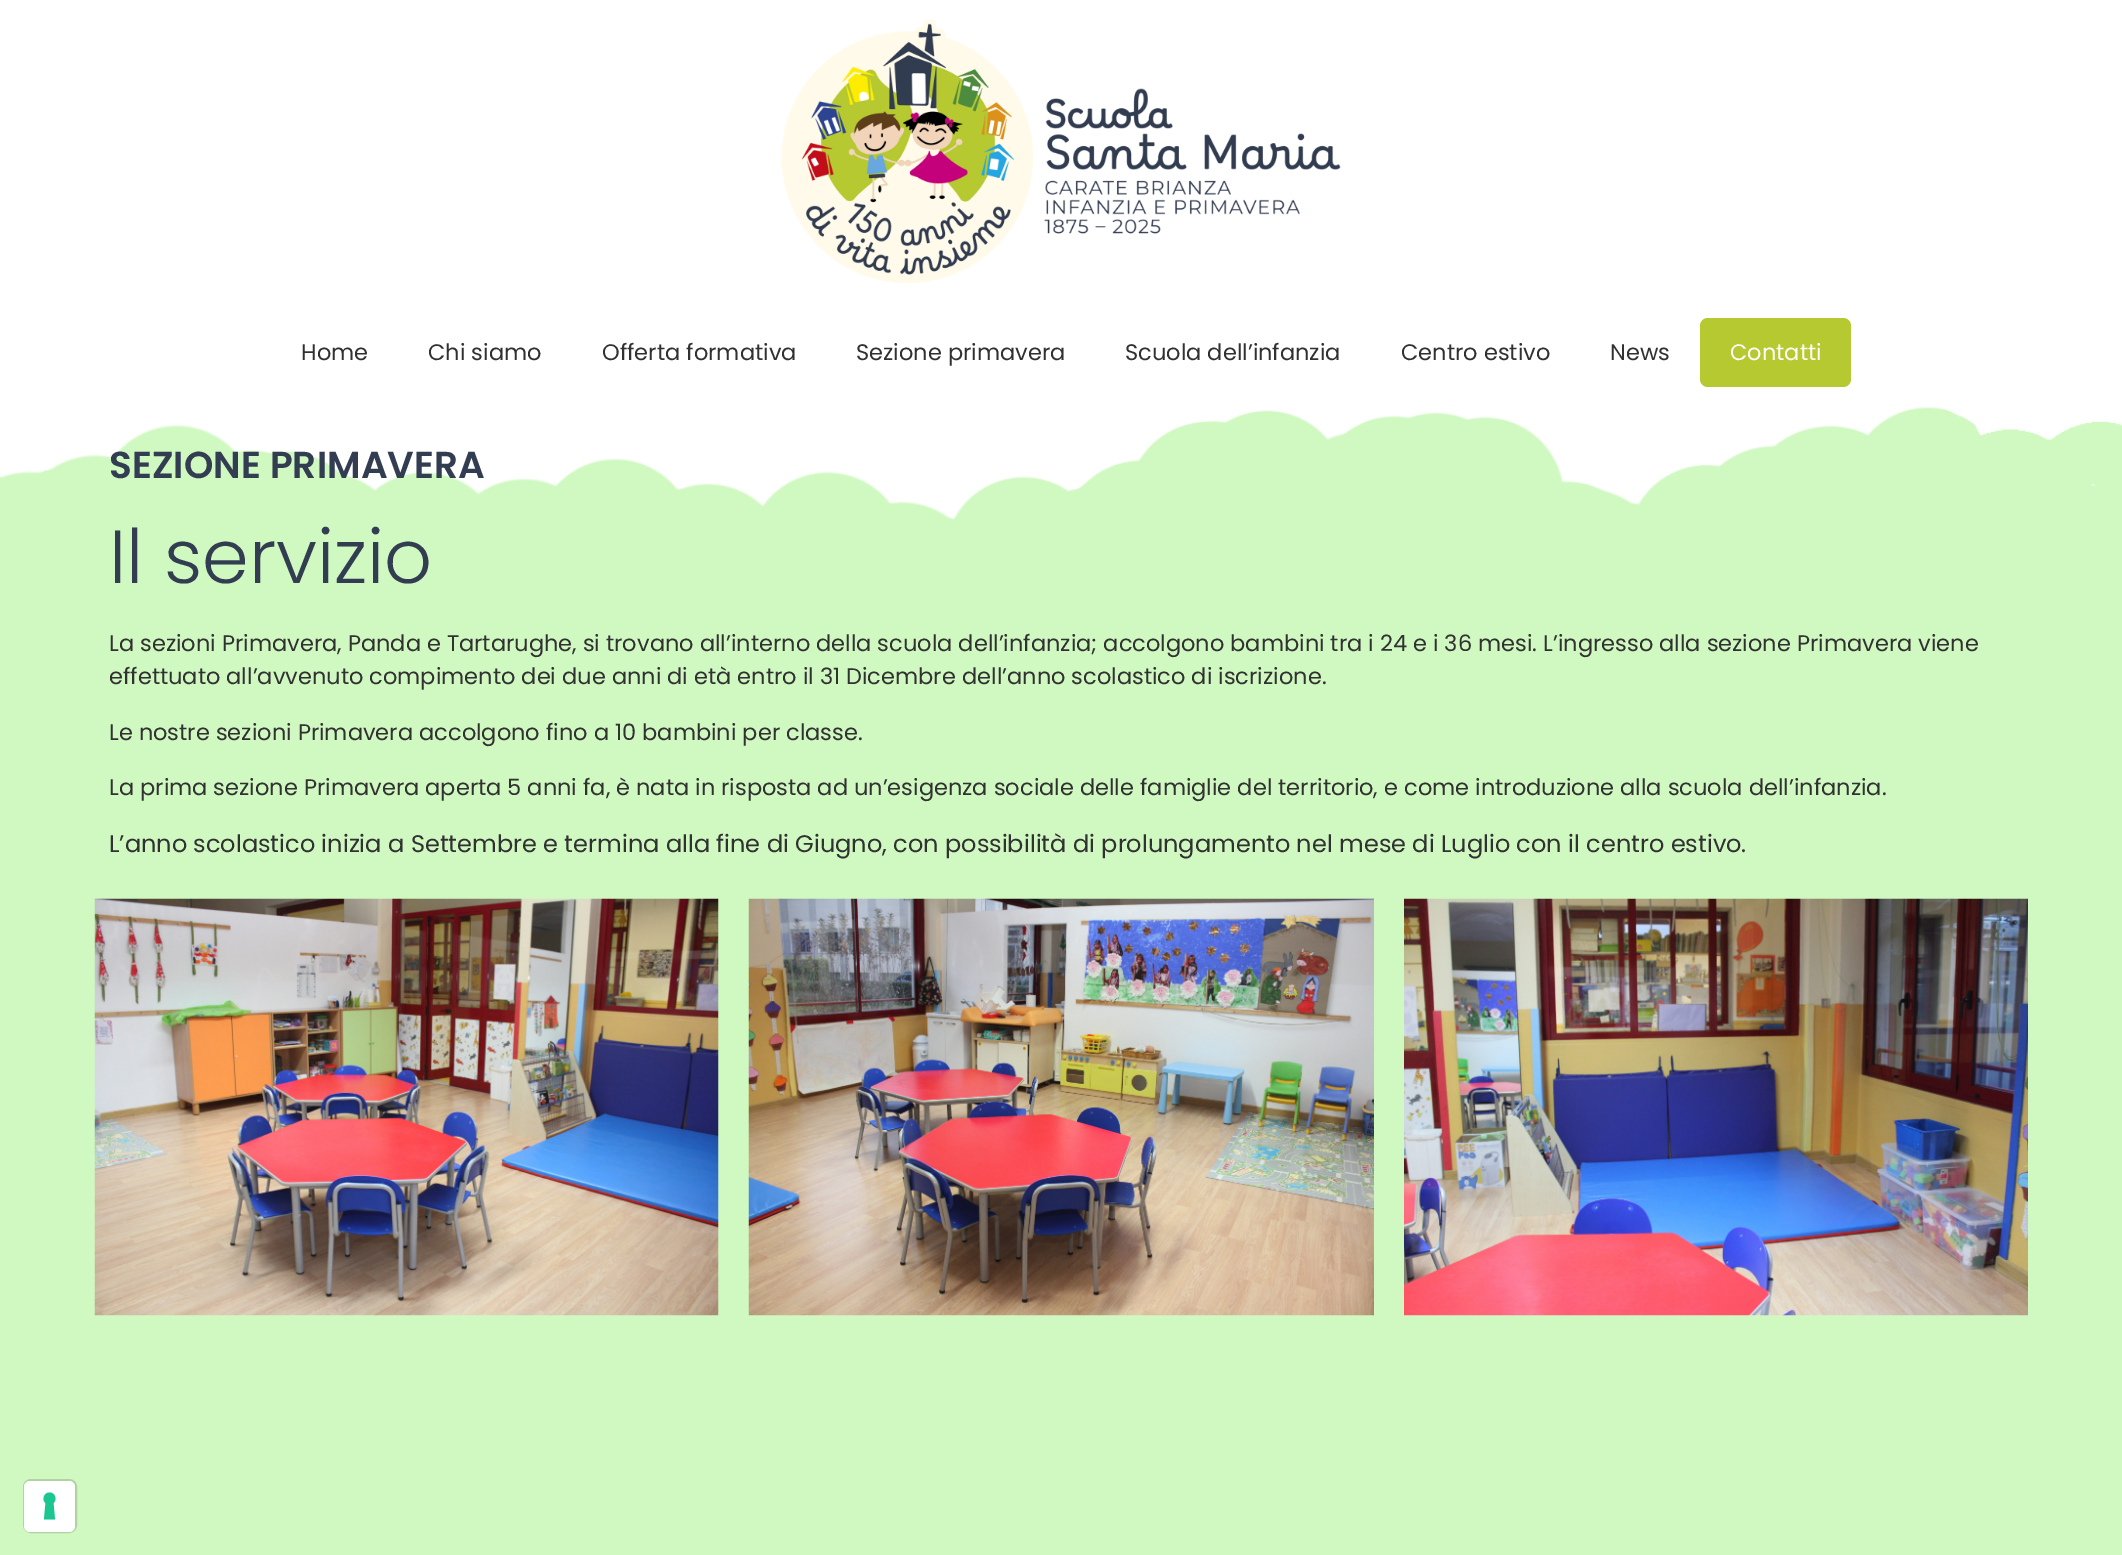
%!PS-Adobe-3.0
%%BoundingBox: 0 0 2122 1555
%%LanguageLevel: 3
%%Pages: 1
%%EndComments
%%BeginProlog
/setink { dup -16 bitshift 255 div exch dup -8 bitshift 255 and 255 div exch 255 and 255 div setrgbcolor } def
/usefont { [ exch dup neg 0 0 3 -1 roll 0 0 ] selectfont } def
/rrect { 5 dict begin { /r /h /w /y /x } { exch def } forall
  x r add y moveto x w add y 2 copy h add r arct x w add y h add x 1 index r arct
  x y h add x y r arct x y 2 copy exch w add exch r arct closepath end } def
/drawimage { 5 dict begin { /h /w /y /x /name } { exch def } forall
  gsave x y translate w h scale
  w h 8 [w 0 0 h 0 0] name (r) file false 3 colorimage grestore end } def
%%EndProlog
%%BeginSetup
<< /PageSize [2122 1555] >> setpagedevice
%%EndSetup
%%Page: 1 1
0 1555 translate 1 -1 scale
4 setmiterlimit
16#FFFFFF setink
0 0 2122 1555 rectfill
(img1.raw) 781 19 560 265 drawimage
/Poppins-Regular 22.5 usefont
16#313131 setink
[
    [(Home) 301 360]
    [(Chi siamo) 428 360]
    [(Offerta formativa) 602 360]
    [(Sezione primavera) 856 360]
    [(Scuola dell’infanzia) 1125 360]
    [(Centro estivo) 1401 360]
    [(News) 1610 360]
] { aload pop moveto show } forall
16#B6C931 setink
1700 318 151 69 8 rrect fill
16#FFFFFF setink
1730 360 moveto (Contatti) show
(img2.raw) 0 407 2122 1148 drawimage
/Poppins-SemiBold 37.5 usefont
16#333D51 setink
109 478 moveto (SEZIONE PRIMAVERA) show
/Poppins-Light 75 usefont
109 583 moveto (Il servizio) show
/Poppins-Regular 22.5 usefont
16#313131 setink
[
    [(La sezioni Primavera, Panda e Tartarughe, si trovano all’interno della scuola dell’infanzia; accolgono bambini tra i 24 e i 36 mesi. L’ingresso alla sezione Primavera viene) 109 651]
    [(effettuato all’avvenuto compimento dei due anni di età entro il 31 Dicembre dell’anno scolastico di iscrizione.) 109 684]
    [(Le nostre sezioni Primavera accolgono fino a 10 bambini per classe.) 109 740]
    [(La prima sezione Primavera aperta 5 anni fa, è nata in risposta ad un’esigenza sociale delle famiglie del territorio, e come introduzione alla scuola dell’infanzia.) 109 795]
] { aload pop moveto show } forall
/Poppins-Regular 24 usefont
109 852 moveto (L’anno scolastico inizia a Settembre e termina alla fine di Giugno, con possibilità di prolungamento nel mese di Luglio con il centro estivo.) show
(img3.raw) 94 898 625 418 drawimage
(img4.raw) 748 898 626 418 drawimage
(img5.raw) 1404 898 624 418 drawimage
16#B1D3A4 setink
2 setlinewidth
24 1480 52 52 7 rrect stroke
16#FFFFFF setink
24 1481 51 51 6 rrect fill
16#1CC691 setink
49.5 1492.5 moveto 55 1492.5 57.5 1499.5 53.5 1503 curveto 55 1519.5 lineto 44 1519.5 lineto 45.5 1503 lineto 41.5 1499.5 44 1492.5 49.5 1492.5 curveto closepath eofill
showpage
%%EOF
